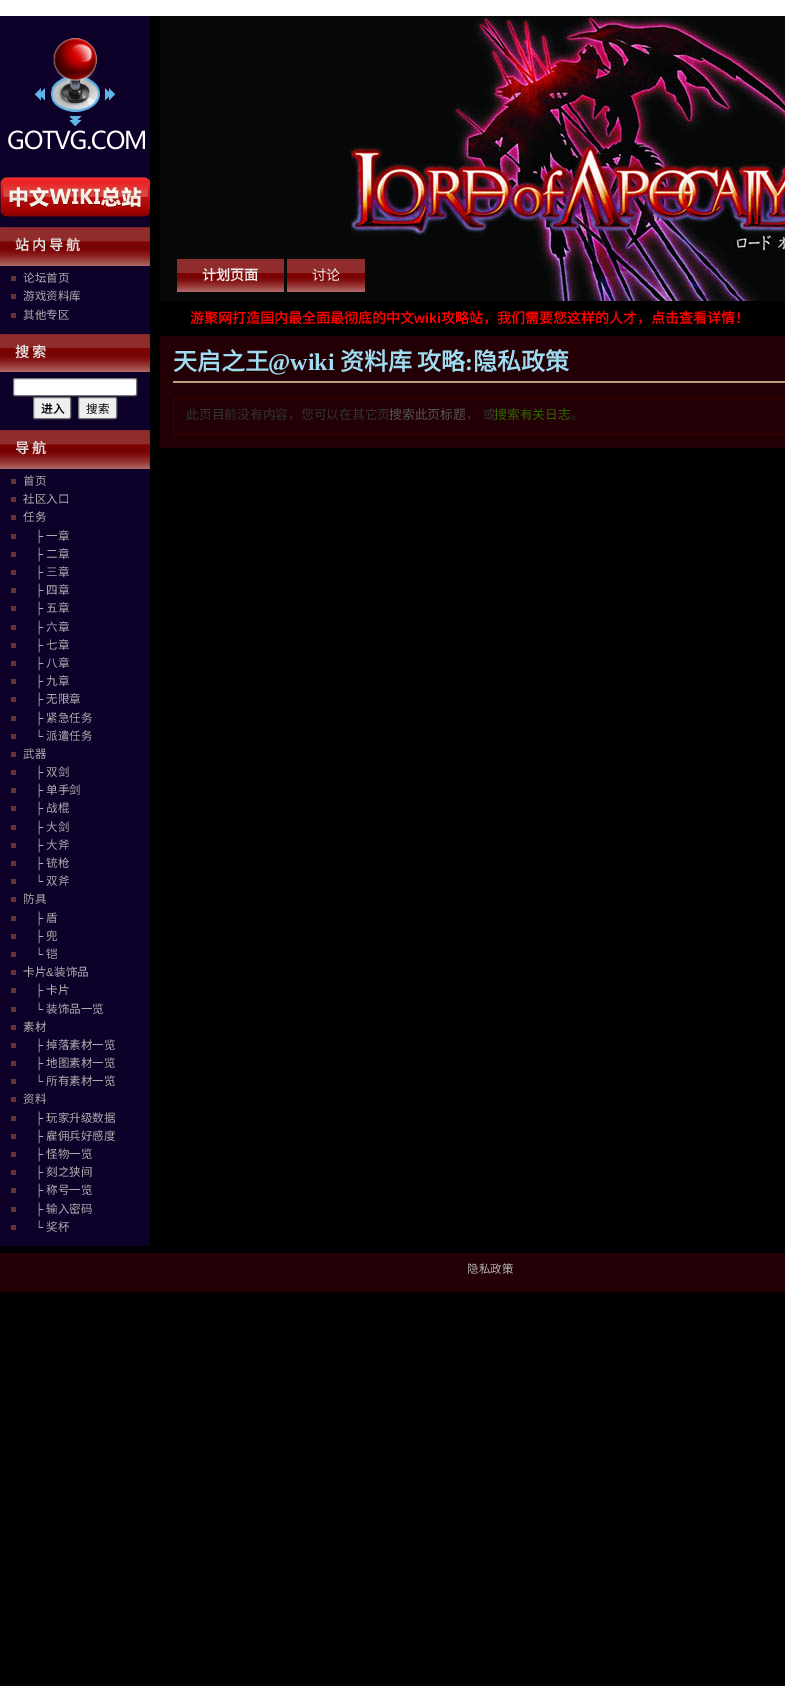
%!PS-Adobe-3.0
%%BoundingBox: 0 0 785 1686
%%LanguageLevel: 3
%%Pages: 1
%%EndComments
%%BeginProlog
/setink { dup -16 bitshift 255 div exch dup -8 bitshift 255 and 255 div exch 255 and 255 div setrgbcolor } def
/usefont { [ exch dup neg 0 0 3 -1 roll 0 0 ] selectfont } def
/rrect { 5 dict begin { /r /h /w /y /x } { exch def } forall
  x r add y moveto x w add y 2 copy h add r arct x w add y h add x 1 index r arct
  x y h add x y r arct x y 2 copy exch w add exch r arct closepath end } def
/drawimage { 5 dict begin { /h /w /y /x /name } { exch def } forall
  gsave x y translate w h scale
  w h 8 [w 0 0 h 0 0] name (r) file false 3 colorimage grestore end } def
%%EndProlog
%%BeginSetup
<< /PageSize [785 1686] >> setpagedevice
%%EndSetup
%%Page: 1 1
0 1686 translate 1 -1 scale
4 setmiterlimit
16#000000 setink
0 0 785 1686 rectfill
16#FFFFFF setink
0 0 785 16 rectfill
16#0D0029 setink
0 16 150 1230 rectfill
(img1.raw) 8 38 137 112 drawimage
(img2.raw) 0 177 150 40 drawimage
(img3.raw) 0 227 150 39 drawimage
/NotoSansCJKSC-Bold 14 usefont
16#DFDFDF setink
15 250 moveto 3 0 (站内导航) ashow
16#663333 setink
11 276 5 5 rectfill
/NotoSansCJKSC-Regular 11.5 usefont
16#AEAEAE setink
23 282 moveto (论坛首页) show
16#663333 setink
11 294 5 5 rectfill
16#AEAEAE setink
23 300 moveto (游戏资料库) show
16#663333 setink
11 313 5 5 rectfill
16#AEAEAE setink
23 319 moveto (其他专区) show
(img4.raw) 0 334 150 38 drawimage
/NotoSansCJKSC-Bold 14 usefont
16#DFDFDF setink
15 357 moveto 3 0 (搜索) ashow
16#FFFFFF setink
13.5 378.5 123 17 1.5 rrect gsave fill grestore
16#767676 setink
stroke
16#EFEFEF setink
33.5 397.5 37 21 1.5 rrect gsave fill grestore
16#767676 setink
stroke
/NotoSansCJKSC-Bold 11.5 usefont
16#000000 setink
41 413 moveto (进入) show
16#EFEFEF setink
78.5 397.5 38 21 1.5 rrect gsave fill grestore
16#767676 setink
stroke
/NotoSansCJKSC-Regular 11.5 usefont
16#000000 setink
86 413 moveto (搜索) show
(img3.raw) 0 430 150 39 drawimage
/NotoSansCJKSC-Bold 14 usefont
16#DFDFDF setink
15 453 moveto 3 0 (导航) ashow
16#663333 setink
11 479 5 5 rectfill
/NotoSansCJKSC-Regular 11.5 usefont
16#AEAEAE setink
23 485 moveto (首页) show
16#663333 setink
11 497 5 5 rectfill
16#AEAEAE setink
23 503 moveto (社区入口) show
16#663333 setink
11 515 5 5 rectfill
16#AEAEAE setink
23 521 moveto (任务) show
16#663333 setink
11 534 5 5 rectfill
/LiberationSans-Regular 11.5 usefont
16#AEAEAE setink
35 540 moveto (├) show
/NotoSansCJKSC-Regular 11.5 usefont
46 540 moveto (一章) show
16#663333 setink
11 552 5 5 rectfill
/LiberationSans-Regular 11.5 usefont
16#AEAEAE setink
35 558 moveto (├) show
/NotoSansCJKSC-Regular 11.5 usefont
46 558 moveto (二章) show
16#663333 setink
11 570 5 5 rectfill
/LiberationSans-Regular 11.5 usefont
16#AEAEAE setink
35 576 moveto (├) show
/NotoSansCJKSC-Regular 11.5 usefont
46 576 moveto (三章) show
16#663333 setink
11 588 5 5 rectfill
/LiberationSans-Regular 11.5 usefont
16#AEAEAE setink
35 594 moveto (├) show
/NotoSansCJKSC-Regular 11.5 usefont
46 594 moveto (四章) show
16#663333 setink
11 606 5 5 rectfill
/LiberationSans-Regular 11.5 usefont
16#AEAEAE setink
35 612 moveto (├) show
/NotoSansCJKSC-Regular 11.5 usefont
46 612 moveto (五章) show
16#663333 setink
11 625 5 5 rectfill
/LiberationSans-Regular 11.5 usefont
16#AEAEAE setink
35 631 moveto (├) show
/NotoSansCJKSC-Regular 11.5 usefont
46 631 moveto (六章) show
16#663333 setink
11 643 5 5 rectfill
/LiberationSans-Regular 11.5 usefont
16#AEAEAE setink
35 649 moveto (├) show
/NotoSansCJKSC-Regular 11.5 usefont
46 649 moveto (七章) show
16#663333 setink
11 661 5 5 rectfill
/LiberationSans-Regular 11.5 usefont
16#AEAEAE setink
35 667 moveto (├) show
/NotoSansCJKSC-Regular 11.5 usefont
46 667 moveto (八章) show
16#663333 setink
11 679 5 5 rectfill
/LiberationSans-Regular 11.5 usefont
16#AEAEAE setink
35 685 moveto (├) show
/NotoSansCJKSC-Regular 11.5 usefont
46 685 moveto (九章) show
16#663333 setink
11 697 5 5 rectfill
/LiberationSans-Regular 11.5 usefont
16#AEAEAE setink
35 703 moveto (├) show
/NotoSansCJKSC-Regular 11.5 usefont
46 703 moveto (无限章) show
16#663333 setink
11 716 5 5 rectfill
/LiberationSans-Regular 11.5 usefont
16#AEAEAE setink
35 722 moveto (├) show
/NotoSansCJKSC-Regular 11.5 usefont
46 722 moveto (紧急任务) show
16#663333 setink
11 734 5 5 rectfill
/LiberationSans-Regular 11.5 usefont
16#AEAEAE setink
35 740 moveto (└) show
/NotoSansCJKSC-Regular 11.5 usefont
46 740 moveto (派遣任务) show
16#663333 setink
11 752 5 5 rectfill
16#AEAEAE setink
23 758 moveto (武器) show
16#663333 setink
11 770 5 5 rectfill
/LiberationSans-Regular 11.5 usefont
16#AEAEAE setink
35 776 moveto (├) show
/NotoSansCJKSC-Regular 11.5 usefont
46 776 moveto (双剑) show
16#663333 setink
11 788 5 5 rectfill
/LiberationSans-Regular 11.5 usefont
16#AEAEAE setink
35 794 moveto (├) show
/NotoSansCJKSC-Regular 11.5 usefont
46 794 moveto (单手剑) show
16#663333 setink
11 806 5 5 rectfill
/LiberationSans-Regular 11.5 usefont
16#AEAEAE setink
35 812 moveto (├) show
/NotoSansCJKSC-Regular 11.5 usefont
46 812 moveto (战棍) show
16#663333 setink
11 825 5 5 rectfill
/LiberationSans-Regular 11.5 usefont
16#AEAEAE setink
35 831 moveto (├) show
/NotoSansCJKSC-Regular 11.5 usefont
46 831 moveto (大剑) show
16#663333 setink
11 843 5 5 rectfill
/LiberationSans-Regular 11.5 usefont
16#AEAEAE setink
35 849 moveto (├) show
/NotoSansCJKSC-Regular 11.5 usefont
46 849 moveto (大斧) show
16#663333 setink
11 861 5 5 rectfill
/LiberationSans-Regular 11.5 usefont
16#AEAEAE setink
35 867 moveto (├) show
/NotoSansCJKSC-Regular 11.5 usefont
46 867 moveto (铳枪) show
16#663333 setink
11 879 5 5 rectfill
/LiberationSans-Regular 11.5 usefont
16#AEAEAE setink
35 885 moveto (└) show
/NotoSansCJKSC-Regular 11.5 usefont
46 885 moveto (双斧) show
16#663333 setink
11 897 5 5 rectfill
16#AEAEAE setink
23 903 moveto (防具) show
16#663333 setink
11 916 5 5 rectfill
/LiberationSans-Regular 11.5 usefont
16#AEAEAE setink
35 922 moveto (├) show
/NotoSansCJKSC-Regular 11.5 usefont
46 922 moveto (盾) show
16#663333 setink
11 934 5 5 rectfill
/LiberationSans-Regular 11.5 usefont
16#AEAEAE setink
35 940 moveto (├) show
/NotoSansCJKSC-Regular 11.5 usefont
46 940 moveto (兜) show
16#663333 setink
11 952 5 5 rectfill
/LiberationSans-Regular 11.5 usefont
16#AEAEAE setink
35 958 moveto (└) show
/NotoSansCJKSC-Regular 11.5 usefont
46 958 moveto (铠) show
16#663333 setink
11 970 5 5 rectfill
16#AEAEAE setink
23 976 moveto (卡片) show
/LiberationSans-Regular 11.5 usefont
46 976 moveto (&) show
/NotoSansCJKSC-Regular 11.5 usefont
54 976 moveto (装饰品) show
16#663333 setink
11 988 5 5 rectfill
/LiberationSans-Regular 11.5 usefont
16#AEAEAE setink
35 994 moveto (├) show
/NotoSansCJKSC-Regular 11.5 usefont
46 994 moveto (卡片) show
16#663333 setink
11 1007 5 5 rectfill
/LiberationSans-Regular 11.5 usefont
16#AEAEAE setink
35 1013 moveto (└) show
/NotoSansCJKSC-Regular 11.5 usefont
46 1013 moveto (装饰品一览) show
16#663333 setink
11 1025 5 5 rectfill
16#AEAEAE setink
23 1031 moveto (素材) show
16#663333 setink
11 1043 5 5 rectfill
/LiberationSans-Regular 11.5 usefont
16#AEAEAE setink
35 1049 moveto (├) show
/NotoSansCJKSC-Regular 11.5 usefont
46 1049 moveto (掉落素材一览) show
16#663333 setink
11 1061 5 5 rectfill
/LiberationSans-Regular 11.5 usefont
16#AEAEAE setink
35 1067 moveto (├) show
/NotoSansCJKSC-Regular 11.5 usefont
46 1067 moveto (地图素材一览) show
16#663333 setink
11 1079 5 5 rectfill
/LiberationSans-Regular 11.5 usefont
16#AEAEAE setink
35 1085 moveto (└) show
/NotoSansCJKSC-Regular 11.5 usefont
46 1085 moveto (所有素材一览) show
16#663333 setink
11 1097 5 5 rectfill
16#AEAEAE setink
23 1103 moveto (资料) show
16#663333 setink
11 1116 5 5 rectfill
/LiberationSans-Regular 11.5 usefont
16#AEAEAE setink
35 1122 moveto (├) show
/NotoSansCJKSC-Regular 11.5 usefont
46 1122 moveto (玩家升级数据) show
16#663333 setink
11 1134 5 5 rectfill
/LiberationSans-Regular 11.5 usefont
16#AEAEAE setink
35 1140 moveto (├) show
/NotoSansCJKSC-Regular 11.5 usefont
46 1140 moveto (雇佣兵好感度) show
16#663333 setink
11 1152 5 5 rectfill
/LiberationSans-Regular 11.5 usefont
16#AEAEAE setink
35 1158 moveto (├) show
/NotoSansCJKSC-Regular 11.5 usefont
46 1158 moveto (怪物一览) show
16#663333 setink
11 1170 5 5 rectfill
/LiberationSans-Regular 11.5 usefont
16#AEAEAE setink
35 1176 moveto (├) show
/NotoSansCJKSC-Regular 11.5 usefont
46 1176 moveto (刻之狭间) show
16#663333 setink
11 1188 5 5 rectfill
/LiberationSans-Regular 11.5 usefont
16#AEAEAE setink
35 1194 moveto (├) show
/NotoSansCJKSC-Regular 11.5 usefont
46 1194 moveto (称号一览) show
16#663333 setink
11 1207 5 5 rectfill
/LiberationSans-Regular 11.5 usefont
16#AEAEAE setink
35 1213 moveto (├) show
/NotoSansCJKSC-Regular 11.5 usefont
46 1213 moveto (输入密码) show
16#663333 setink
11 1225 5 5 rectfill
/LiberationSans-Regular 11.5 usefont
16#AEAEAE setink
35 1231 moveto (└) show
/NotoSansCJKSC-Regular 11.5 usefont
46 1231 moveto (奖杯) show
(img5.raw) 160 16 625 285 drawimage
(img6.raw) 177 259 107 33 drawimage
(img7.raw) 287 259 78 33 drawimage
/NotoSansCJKSC-Bold 14 usefont
16#F0F0F0 setink
202 280 moveto (计划页面) show
/NotoSansCJKSC-Regular 14 usefont
312 280 moveto (讨论) show
/NotoSansCJKSC-Bold 14 usefont
16#FF0000 setink
190 323 moveto (游聚网打造国内最全面最彻底的中文) show
/LiberationSans-Bold 14 usefont
414 323 moveto (wiki) show
/NotoSansCJKSC-Bold 14 usefont
441 323 moveto (攻略站，我们需要您这样的人才，点击查看详情！) show
16#220005 setink
160 336 625 112 rectfill
16#B9A37C setink
173 381 612 2 rectfill
/NotoSansCJKSC-Bold 24 usefont
16#9FDCEF setink
173 370 moveto (天启之王) show
/LiberationSerif-Bold 24 usefont
268 370 moveto (@wiki) show
/NotoSansCJKSC-Bold 24 usefont
340 370 moveto (资料库 攻略) show
/LiberationSerif-Bold 24 usefont
465 370 moveto (:) show
/NotoSansCJKSC-Bold 24 usefont
473 370 moveto (隐私政策) show
16#3C0301 setink
173.5 398.5 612 36 rectstroke
/NotoSansCJKSC-Regular 12.75 usefont
16#333333 setink
186 419 moveto (此页目前没有内容，您可以在其它页) show
16#555555 setink
389 419 moveto (搜索此页标题) show
16#333333 setink
466 419 moveto 1 0 32 (， 或) widthshow
16#336600 setink
494 419 moveto (搜索有关日志) show
16#333333 setink
571 419 moveto (。) show
16#220005 setink
0 1253 785 39 rectfill
/NotoSansCJKSC-Regular 11.5 usefont
16#B7B7B7 setink
467 1273 moveto (隐私政策) show
showpage
%%EOF
